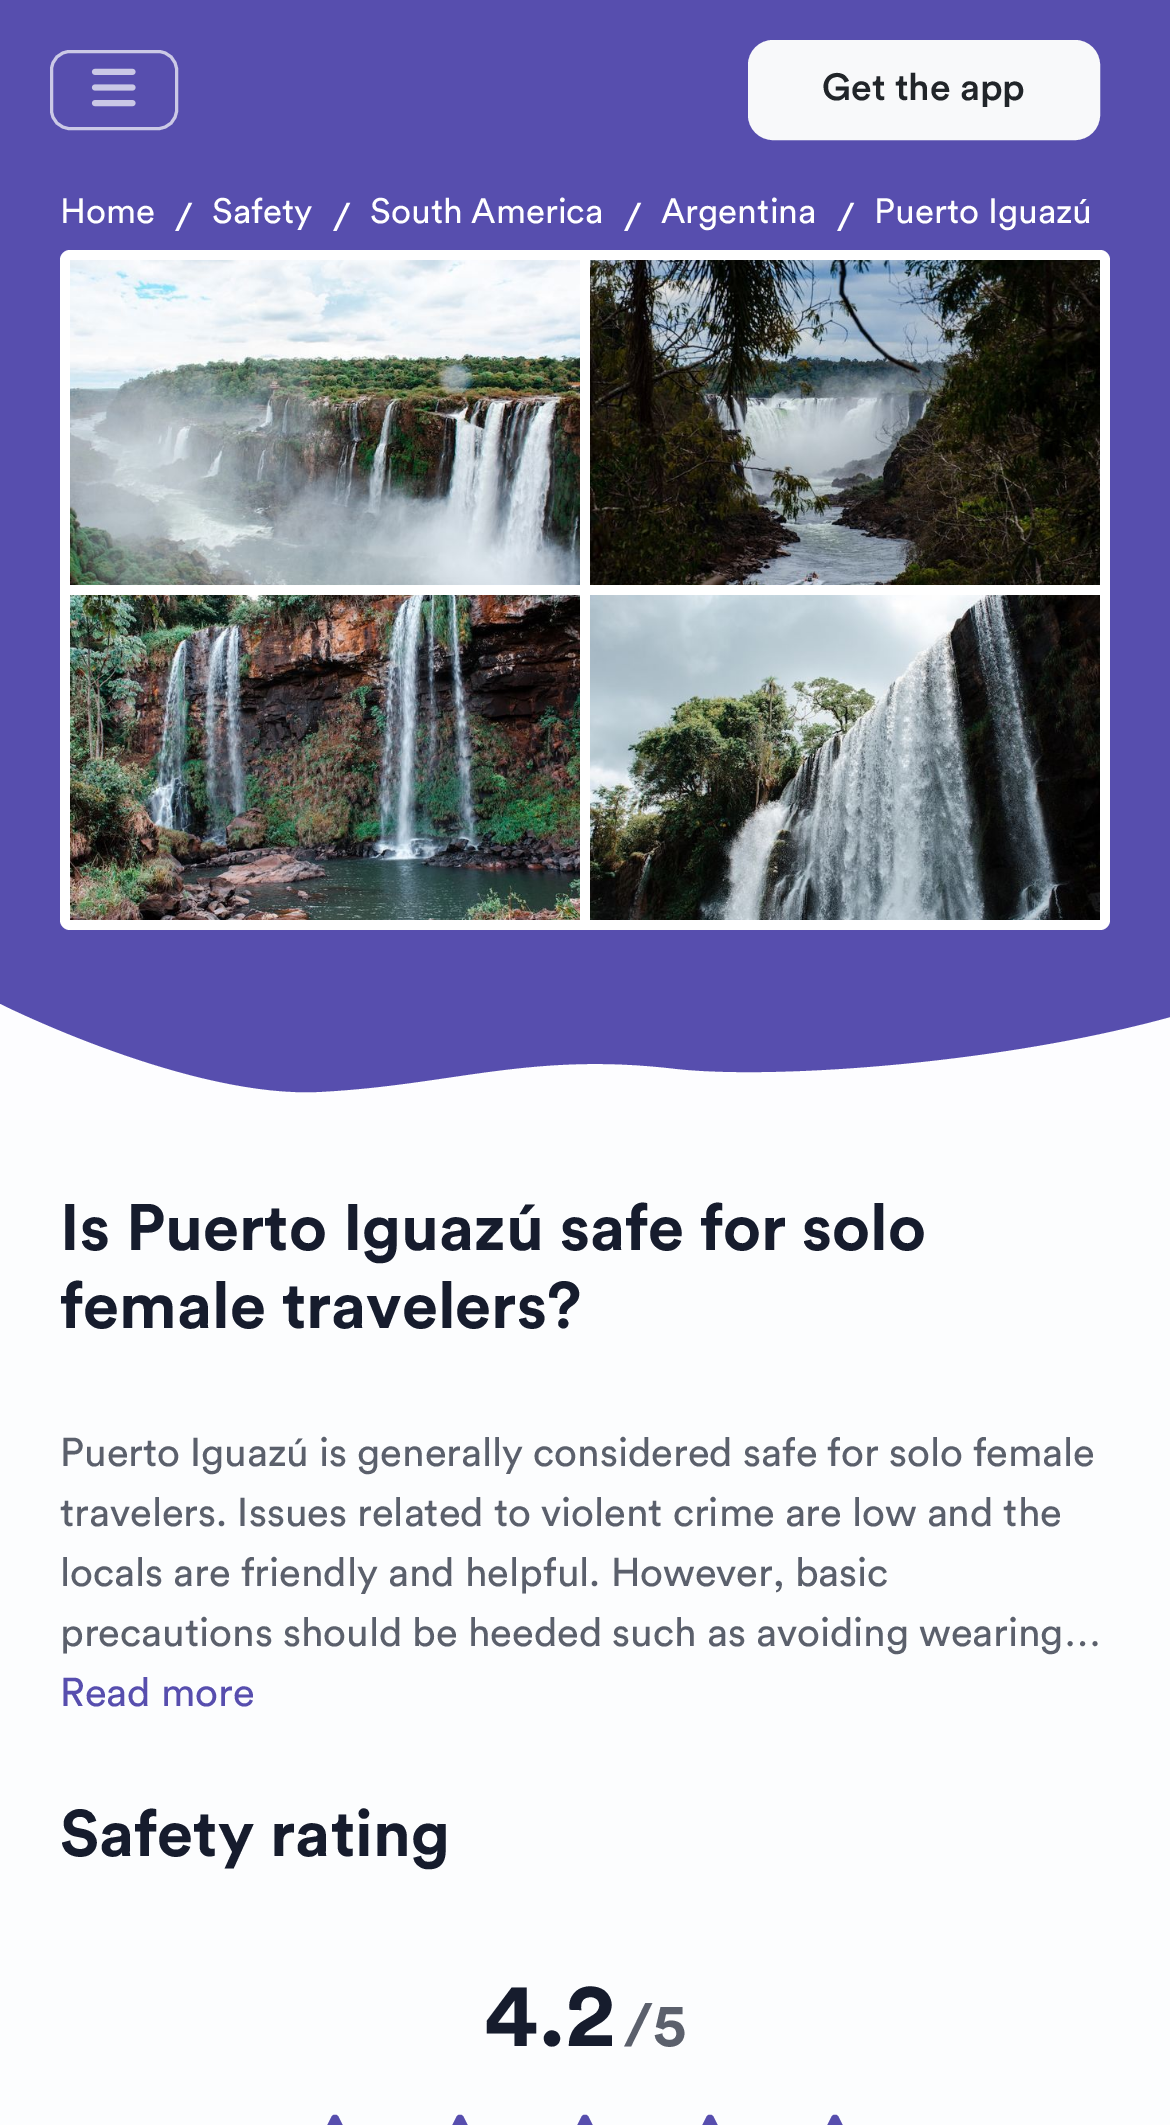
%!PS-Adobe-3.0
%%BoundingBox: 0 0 1170 2125
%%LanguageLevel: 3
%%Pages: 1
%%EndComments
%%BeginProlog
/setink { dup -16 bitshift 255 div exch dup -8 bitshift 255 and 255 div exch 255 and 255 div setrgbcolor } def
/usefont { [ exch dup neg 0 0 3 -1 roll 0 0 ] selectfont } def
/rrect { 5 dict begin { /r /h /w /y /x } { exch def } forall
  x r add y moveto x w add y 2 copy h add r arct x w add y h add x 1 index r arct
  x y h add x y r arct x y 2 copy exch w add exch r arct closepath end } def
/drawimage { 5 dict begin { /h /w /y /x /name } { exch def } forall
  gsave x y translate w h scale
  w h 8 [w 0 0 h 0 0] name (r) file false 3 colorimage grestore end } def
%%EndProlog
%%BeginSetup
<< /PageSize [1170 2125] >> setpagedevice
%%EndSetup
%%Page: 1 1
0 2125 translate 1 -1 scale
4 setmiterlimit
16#FCFDFE setink
0 0 1170 2125 rectfill
16#574EAE setink
0 0 1170 1093 rectfill
16#CBC9E6 setink
3 setlinewidth
51.5 51.5 125 77 18.5 rrect stroke
(img1.raw) 91 68 45 39 drawimage
16#F8F9FA setink
749.5 41.5 349 97 23.5 rrect gsave fill grestore
stroke
/Circular-Medium 37.5 usefont
16#212529 setink
822 100 moveto (Get the app) show
/Circular-Regular 35 usefont
16#FFFFFF setink
60 223 moveto (Home) show
/Circular-Regular 40 usefont
175 231 moveto (/) show
/Circular-Regular 35 usefont
212 223 moveto (Safety) show
/Circular-Regular 40 usefont
333 231 moveto (/) show
/Circular-Regular 35 usefont
370 223 moveto (South America) show
/Circular-Regular 40 usefont
624 231 moveto (/) show
/Circular-Regular 35 usefont
661 223 moveto (Argentina) show
/Circular-Regular 40 usefont
837 231 moveto (/) show
/Circular-Regular 35 usefont
874 223 moveto (Puerto Iguazú) show
60 250 1050 680 10 rrect fill
(img2.raw) 70 260 510 325 drawimage
(img3.raw) 590 260 510 325 drawimage
(img4.raw) 70 595 510 325 drawimage
(img5.raw) 590 595 510 325 drawimage
16#FDFDFF setink
0 1004 moveto 0 1004 191 1100 322 1092 curveto 453 1085 531 1052 675 1069 curveto 818 1085 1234 1044 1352 933 curveto 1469 821 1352 1120 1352 1120 curveto 0 1120 lineto closepath fill
/Circular-Bold 65 usefont
16#161C2D setink
60 1250 moveto (Is Puerto Iguazú safe for solo) show
60 1328 moveto (female travelers?) show
/Circular-Regular 40 usefont
16#5B606C setink
[
    [(Puerto Iguazú is generally considered safe for solo female) 60 1466]
    [(travelers. Issues related to violent crime are low and the) 60 1526]
    [(locals are friendly and helpful. However, basic) 60 1586]
    [(precautions should be heeded such as avoiding wearing…) 60 1646]
] { aload pop moveto show } forall
16#574EAE setink
60 1706 moveto (Read more) show
/Circular-Bold 65 usefont
16#161C2D setink
60 1856 moveto (Safety rating) show
/Circular-Bold 90 usefont
484 2046 moveto (4.2) show
/Circular-Bold 60 usefont
16#5B606C setink
624 2046 moveto (/5) show
16#574EAE setink
7.8 setlinewidth
1 setlinecap
1 setlinejoin
383.5 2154 moveto 350 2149 lineto 335 2118.5 lineto 320 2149 lineto 286.5 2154 lineto 310.5 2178 lineto 305 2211.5 lineto 335 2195.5 lineto 365.5 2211 lineto 359.5 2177.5 lineto closepath stroke
508.5 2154 moveto 475 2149 lineto 460 2118.5 lineto 445 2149 lineto 411.5 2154 lineto 435.5 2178 lineto 430 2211.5 lineto 460 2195.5 lineto 490.5 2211 lineto 484.5 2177.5 lineto closepath stroke
633.5 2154 moveto 600 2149 lineto 585 2118.5 lineto 570 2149 lineto 536.5 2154 lineto 560.5 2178 lineto 555 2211.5 lineto 585 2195.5 lineto 615.5 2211 lineto 609.5 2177.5 lineto closepath stroke
758.5 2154 moveto 725 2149 lineto 710 2118.5 lineto 695 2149 lineto 661.5 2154 lineto 685.5 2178 lineto 680 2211.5 lineto 710 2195.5 lineto 740.5 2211 lineto 734.5 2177.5 lineto closepath stroke
883.5 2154 moveto 850 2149 lineto 835 2118.5 lineto 820 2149 lineto 786.5 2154 lineto 810.5 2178 lineto 805 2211.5 lineto 835 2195.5 lineto 865.5 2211 lineto 859.5 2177.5 lineto closepath stroke
showpage
%%EOF
